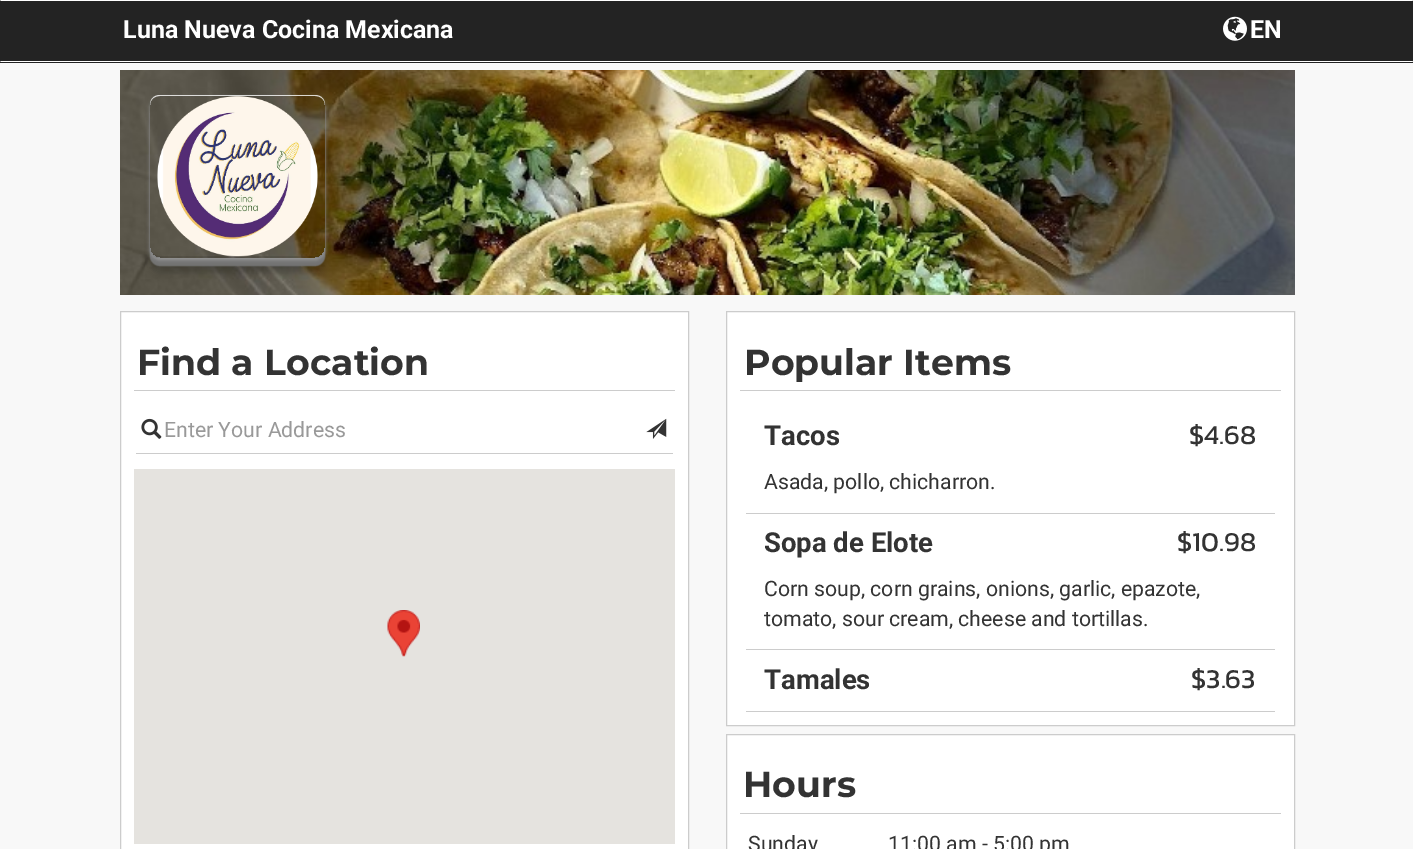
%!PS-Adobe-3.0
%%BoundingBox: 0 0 1413 849
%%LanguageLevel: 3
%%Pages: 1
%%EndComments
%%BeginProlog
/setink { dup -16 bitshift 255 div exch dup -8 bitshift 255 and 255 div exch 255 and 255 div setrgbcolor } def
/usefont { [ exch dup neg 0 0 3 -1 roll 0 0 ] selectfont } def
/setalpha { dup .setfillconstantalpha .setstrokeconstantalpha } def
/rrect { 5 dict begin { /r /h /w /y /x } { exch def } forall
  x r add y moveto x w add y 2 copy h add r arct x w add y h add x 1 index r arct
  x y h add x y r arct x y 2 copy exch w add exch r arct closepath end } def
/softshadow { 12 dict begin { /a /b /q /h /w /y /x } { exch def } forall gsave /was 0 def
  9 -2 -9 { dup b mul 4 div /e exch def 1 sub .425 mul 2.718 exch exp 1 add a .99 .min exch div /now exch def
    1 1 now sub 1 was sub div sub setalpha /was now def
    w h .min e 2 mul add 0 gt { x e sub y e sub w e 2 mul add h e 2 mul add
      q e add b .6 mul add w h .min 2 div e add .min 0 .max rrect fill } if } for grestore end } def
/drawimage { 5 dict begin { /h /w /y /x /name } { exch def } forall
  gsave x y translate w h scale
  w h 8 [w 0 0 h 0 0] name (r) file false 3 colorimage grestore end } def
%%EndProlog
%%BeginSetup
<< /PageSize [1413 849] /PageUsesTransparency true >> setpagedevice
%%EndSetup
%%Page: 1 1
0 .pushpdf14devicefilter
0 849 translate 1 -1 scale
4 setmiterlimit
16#F8F8F8 setink
0 0 1413 849 rectfill
16#232323 setink
0 0 1413 63 rectfill
16#FFFFFF setink
0 0 moveto 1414 0 lineto 1412 1 lineto 1 1 lineto closepath fill
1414 62 moveto 0 62 lineto 1 61 lineto 1412 61 lineto closepath fill
/Roboto-Bold 25 usefont
123 38 moveto (Luna Nueva Cocina Mexicana) show
(img1.raw) 1223 16 24 25 drawimage
1250 38 moveto (EN) show
(img2.raw) 120 70 1175 225 drawimage
gsave
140 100 moveto 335 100 lineto 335 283 lineto 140 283 lineto closepath 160 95 moveto 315 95 lineto 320.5 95 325 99.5 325 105 curveto 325 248 lineto 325 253.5 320.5 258 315 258 curveto 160 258 lineto 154.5 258 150 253.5 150 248 curveto 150 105 lineto 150 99.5 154.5 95 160 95 curveto closepath eoclip newpath
16#000000 setink
150 110 175 163 10 3 0.2 softshadow
grestore
gsave
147 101 moveto 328 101 lineto 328 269 lineto 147 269 lineto closepath 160 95 moveto 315 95 lineto 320.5 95 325 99.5 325 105 curveto 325 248 lineto 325 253.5 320.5 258 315 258 curveto 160 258 lineto 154.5 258 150 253.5 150 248 curveto 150 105 lineto 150 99.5 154.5 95 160 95 curveto closepath eoclip newpath
16#737373 setink
150 104 175 162 10 0.5 1 softshadow
grestore
gsave
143 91 moveto 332 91 lineto 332 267 lineto 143 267 lineto closepath 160 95 moveto 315 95 lineto 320.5 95 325 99.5 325 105 curveto 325 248 lineto 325 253.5 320.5 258 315 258 curveto 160 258 lineto 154.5 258 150 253.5 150 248 curveto 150 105 lineto 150 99.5 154.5 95 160 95 curveto closepath eoclip newpath
16#999999 setink
150 98 175 162 10 2 1 softshadow
grestore
(img3.raw) 157 96 161 161 drawimage
0.8 setalpha
160 95 moveto 154 95 150 99 150 105 curveto 150 100 154 96 160 96 curveto 315 96 lineto 321 96 325 100 325 105 curveto 325 99 321 95 315 95 curveto closepath fill
0.1 setalpha
16#000000 setink
318 258 moveto 322 256 325 252 325 248 curveto 325 252 321 256 315 256 curveto 160 256 lineto 154 256 150 252 150 248 curveto 150 252 153 256 157 258 curveto closepath fill
1 setalpha
16#FFFFFF setink
120.5 311.5 moveto 688.5 311.5 lineto 688.5 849.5 lineto 120.5 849.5 lineto closepath gsave fill grestore
16#CCCCCC setink
stroke
134 390 541 1 rectfill
/Montserrat-Bold 36.25 usefont
16#333333 setink
137 375 moveto (Find a Location) show
(img4.raw) 141 418 21 21 drawimage
16#CCCCCC setink
136 453 537 1 rectfill
/Roboto-Regular 21.25 usefont
16#999999 setink
164 437 moveto (Enter Your Address) show
(img5.raw) 646 418 21 21 drawimage
16#E5E3DF setink
134 469 541 375 rectfill
(img6.raw) 387 610 33 47 drawimage
16#FFFFFF setink
726.5 311.5 moveto 1294.5 311.5 lineto 1294.5 725.5 lineto 726.5 725.5 lineto closepath gsave fill grestore
16#CCCCCC setink
stroke
740 390 541 1 rectfill
/Montserrat-Bold 36.25 usefont
16#333333 setink
744 375 moveto (Popular Items) show
16#CCCCCC setink
746 513 529 1 rectfill
/Roboto-Bold 27.5 usefont
16#333333 setink
764 445 moveto (Tacos) show
/Kanit-Regular 27.5 usefont
1189 444 moveto ($4.68) show
/Roboto-Regular 21.25 usefont
764 489 moveto (Asada, pollo, chicharron.) show
16#CCCCCC setink
746 649 529 1 rectfill
/Roboto-Bold 27.5 usefont
16#333333 setink
764 552 moveto (Sopa de Elote) show
/Kanit-Regular 27.5 usefont
1177 551 moveto ($10.98) show
/Roboto-Regular 21.25 usefont
764 596 moveto (Corn soup, corn grains, onions, garlic, epazote,) show
764 626 moveto (tomato, sour cream, cheese and tortillas.) show
16#CCCCCC setink
746 711 529 1 rectfill
/Roboto-Bold 27.5 usefont
16#333333 setink
764 689 moveto (Tamales) show
/Kanit-Regular 27.5 usefont
1191 688 moveto ($3.63) show
16#FFFFFF setink
726.5 734.5 moveto 1294.5 734.5 lineto 1294.5 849.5 lineto 726.5 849.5 lineto closepath gsave fill grestore
16#CCCCCC setink
stroke
740 813 541 1 rectfill
/Montserrat-Bold 36.25 usefont
16#333333 setink
743 797 moveto (Hours) show
/Roboto-Regular 21.25 usefont
748 851 moveto (Sunday) show
888 851 moveto (11:00 am - 5:00 pm) show
.poppdf14devicefilter showpage
%%EOF
